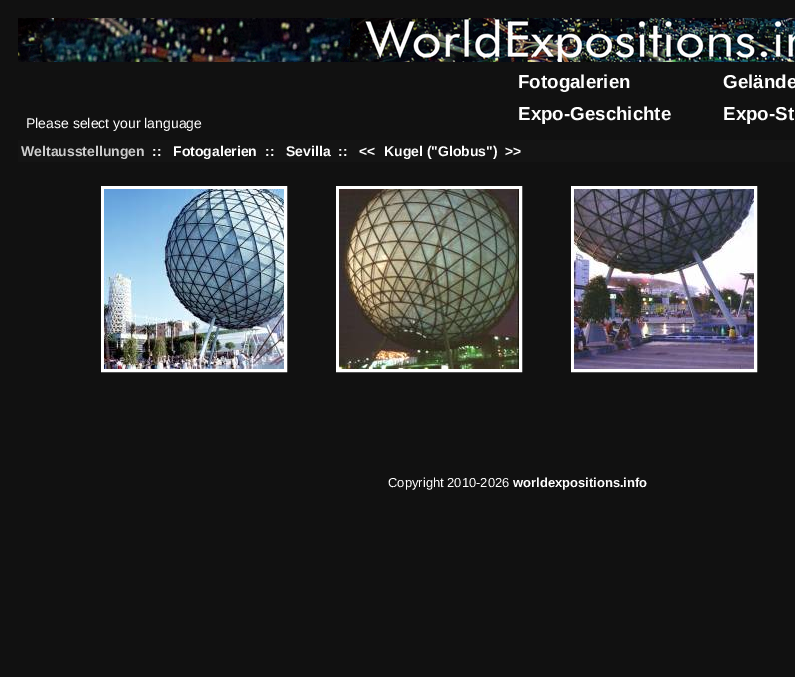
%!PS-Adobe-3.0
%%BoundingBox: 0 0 795 677
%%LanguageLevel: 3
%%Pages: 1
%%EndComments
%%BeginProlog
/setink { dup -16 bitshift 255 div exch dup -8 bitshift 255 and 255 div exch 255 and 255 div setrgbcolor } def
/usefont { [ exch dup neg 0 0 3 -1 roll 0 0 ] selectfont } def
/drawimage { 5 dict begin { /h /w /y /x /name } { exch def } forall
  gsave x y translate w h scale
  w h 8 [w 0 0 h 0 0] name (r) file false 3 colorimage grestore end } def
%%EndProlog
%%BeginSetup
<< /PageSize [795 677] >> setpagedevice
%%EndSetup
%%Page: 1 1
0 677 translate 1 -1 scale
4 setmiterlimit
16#111111 setink
0 0 795 677 rectfill
(img1.raw) 18 18 777 44 drawimage
/LiberationSans-Regular 14 usefont
16#FFFFFF setink
26 128 moveto (Please select your language) show
/LiberationSans-Bold 18.75 usefont
[
    [(Fotogalerien) 518 88]
    [(Gelände) 723 88]
    [(Expo-Geschichte) 518 120]
    [(Expo-St) 723 120]
] { aload pop moveto show } forall
16#141414 setink
18 140 777 22 rectfill
/LiberationSans-Bold 14 usefont
16#CCCCCC setink
21 156 moveto (Weltausstellungen) show
16#FFFFFF setink
[
    [(::) 152 156]
    [(Fotogalerien) 173 156]
    [(::) 265 156]
    [(Sevilla) 286 156]
    [(::) 338 156]
    [(<<) 359 156]
    [(Kugel \("Globus"\)) 384 156]
    [(>>) 505 156]
] { aload pop moveto show } forall
3 setlinewidth
102.5 187.5 183 183 rectstroke
(img2.raw) 104 189 180 180 drawimage
337.5 187.5 183 183 rectstroke
(img3.raw) 339 189 180 180 drawimage
572.5 187.5 183 183 rectstroke
(img4.raw) 574 189 180 180 drawimage
/LiberationSans-Regular 13 usefont
388 487 moveto (Copyright 2010-2026) show
/LiberationSans-Bold 13 usefont
513 487 moveto (worldexpositions.info) show
showpage
%%EOF
